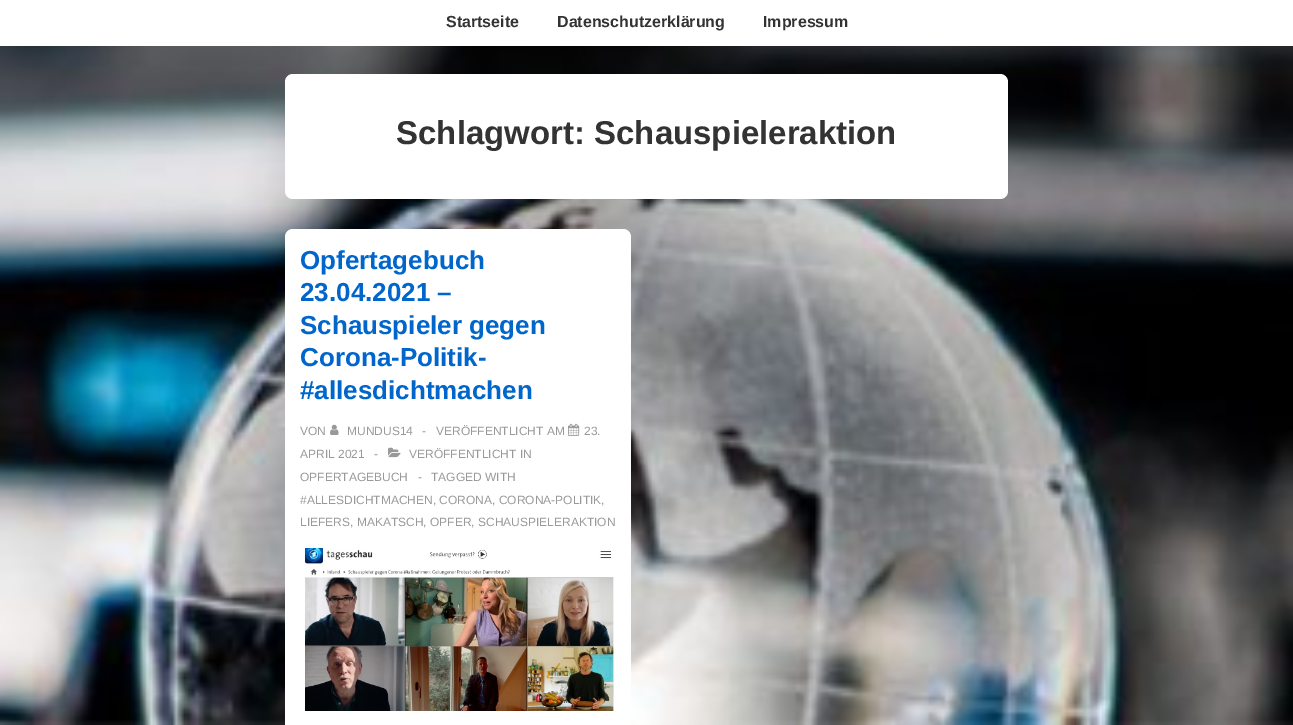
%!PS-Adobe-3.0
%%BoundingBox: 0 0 1293 725
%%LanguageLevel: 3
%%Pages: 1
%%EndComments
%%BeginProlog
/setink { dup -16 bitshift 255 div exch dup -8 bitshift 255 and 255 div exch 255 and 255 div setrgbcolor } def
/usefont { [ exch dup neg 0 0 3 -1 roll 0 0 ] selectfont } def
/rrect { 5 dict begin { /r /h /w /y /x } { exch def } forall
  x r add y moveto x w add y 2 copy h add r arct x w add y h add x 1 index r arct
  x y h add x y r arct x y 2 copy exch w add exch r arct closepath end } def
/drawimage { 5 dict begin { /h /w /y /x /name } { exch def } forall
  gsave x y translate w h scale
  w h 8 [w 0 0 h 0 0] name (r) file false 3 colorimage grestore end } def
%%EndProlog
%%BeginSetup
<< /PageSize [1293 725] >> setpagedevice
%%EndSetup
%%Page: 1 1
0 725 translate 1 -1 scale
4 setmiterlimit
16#FFFFFF setink
0 0 1293 725 rectfill
(img1.raw) 0 46 1293 679 drawimage
/LiberationSans-Bold 16 usefont
16#333333 setink
[
    [(Startseite) 446 27]
    [(Datenschutzerklärung) 557 27]
    [(Impressum) 763 27]
] { aload pop moveto show } forall
16#FFFFFF setink
285 74 723 125 8 rrect fill
/LiberationSans-Bold 33 usefont
16#333333 setink
396 144 moveto (Schlagwort: Schauspieleraktion) show
16#FFFFFF setink
285 229 346 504 8 rrect fill
/LiberationSans-Bold 26 usefont
16#0066CC setink
[
    [(Opfertagebuch) 300 269]
    [(23.04.2021 –) 300 301]
    [(Schauspieler gegen) 300 334]
    [(Corona-Politik-) 300 366]
    [(#allesdichtmachen) 300 399]
] { aload pop moveto show } forall
/LiberationSans-Regular 12 usefont
16#999999 setink
300 435 moveto (VON) show
(img2.raw) 330 424 9 11 drawimage
[
    [(MUNDUS14) 347 435]
    [(-) 422 435]
    [(VERÖFFENTLICHT AM) 436 435]
] { aload pop moveto show } forall
(img3.raw) 568 423 12 13 drawimage
[
    [(23.) 584 435]
    [(APRIL 2021) 300 458]
    [(-) 374 458]
] { aload pop moveto show } forall
(img4.raw) 388 447 13 11 drawimage
[
    [(VERÖFFENTLICHT IN) 409 458]
    [(OPFERTAGEBUCH) 300 481]
    [(-) 418 481]
    [(TAGGED WITH) 431 481]
    [(#ALLESDICHTMACHEN, CORONA, CORONA-POLITIK,) 300 504]
    [(LIEFERS, MAKATSCH, OPFER, SCHAUSPIELERAKTION) 300 526]
] { aload pop moveto show } forall
(img5.raw) 304 548 310 163 drawimage
showpage
%%EOF
